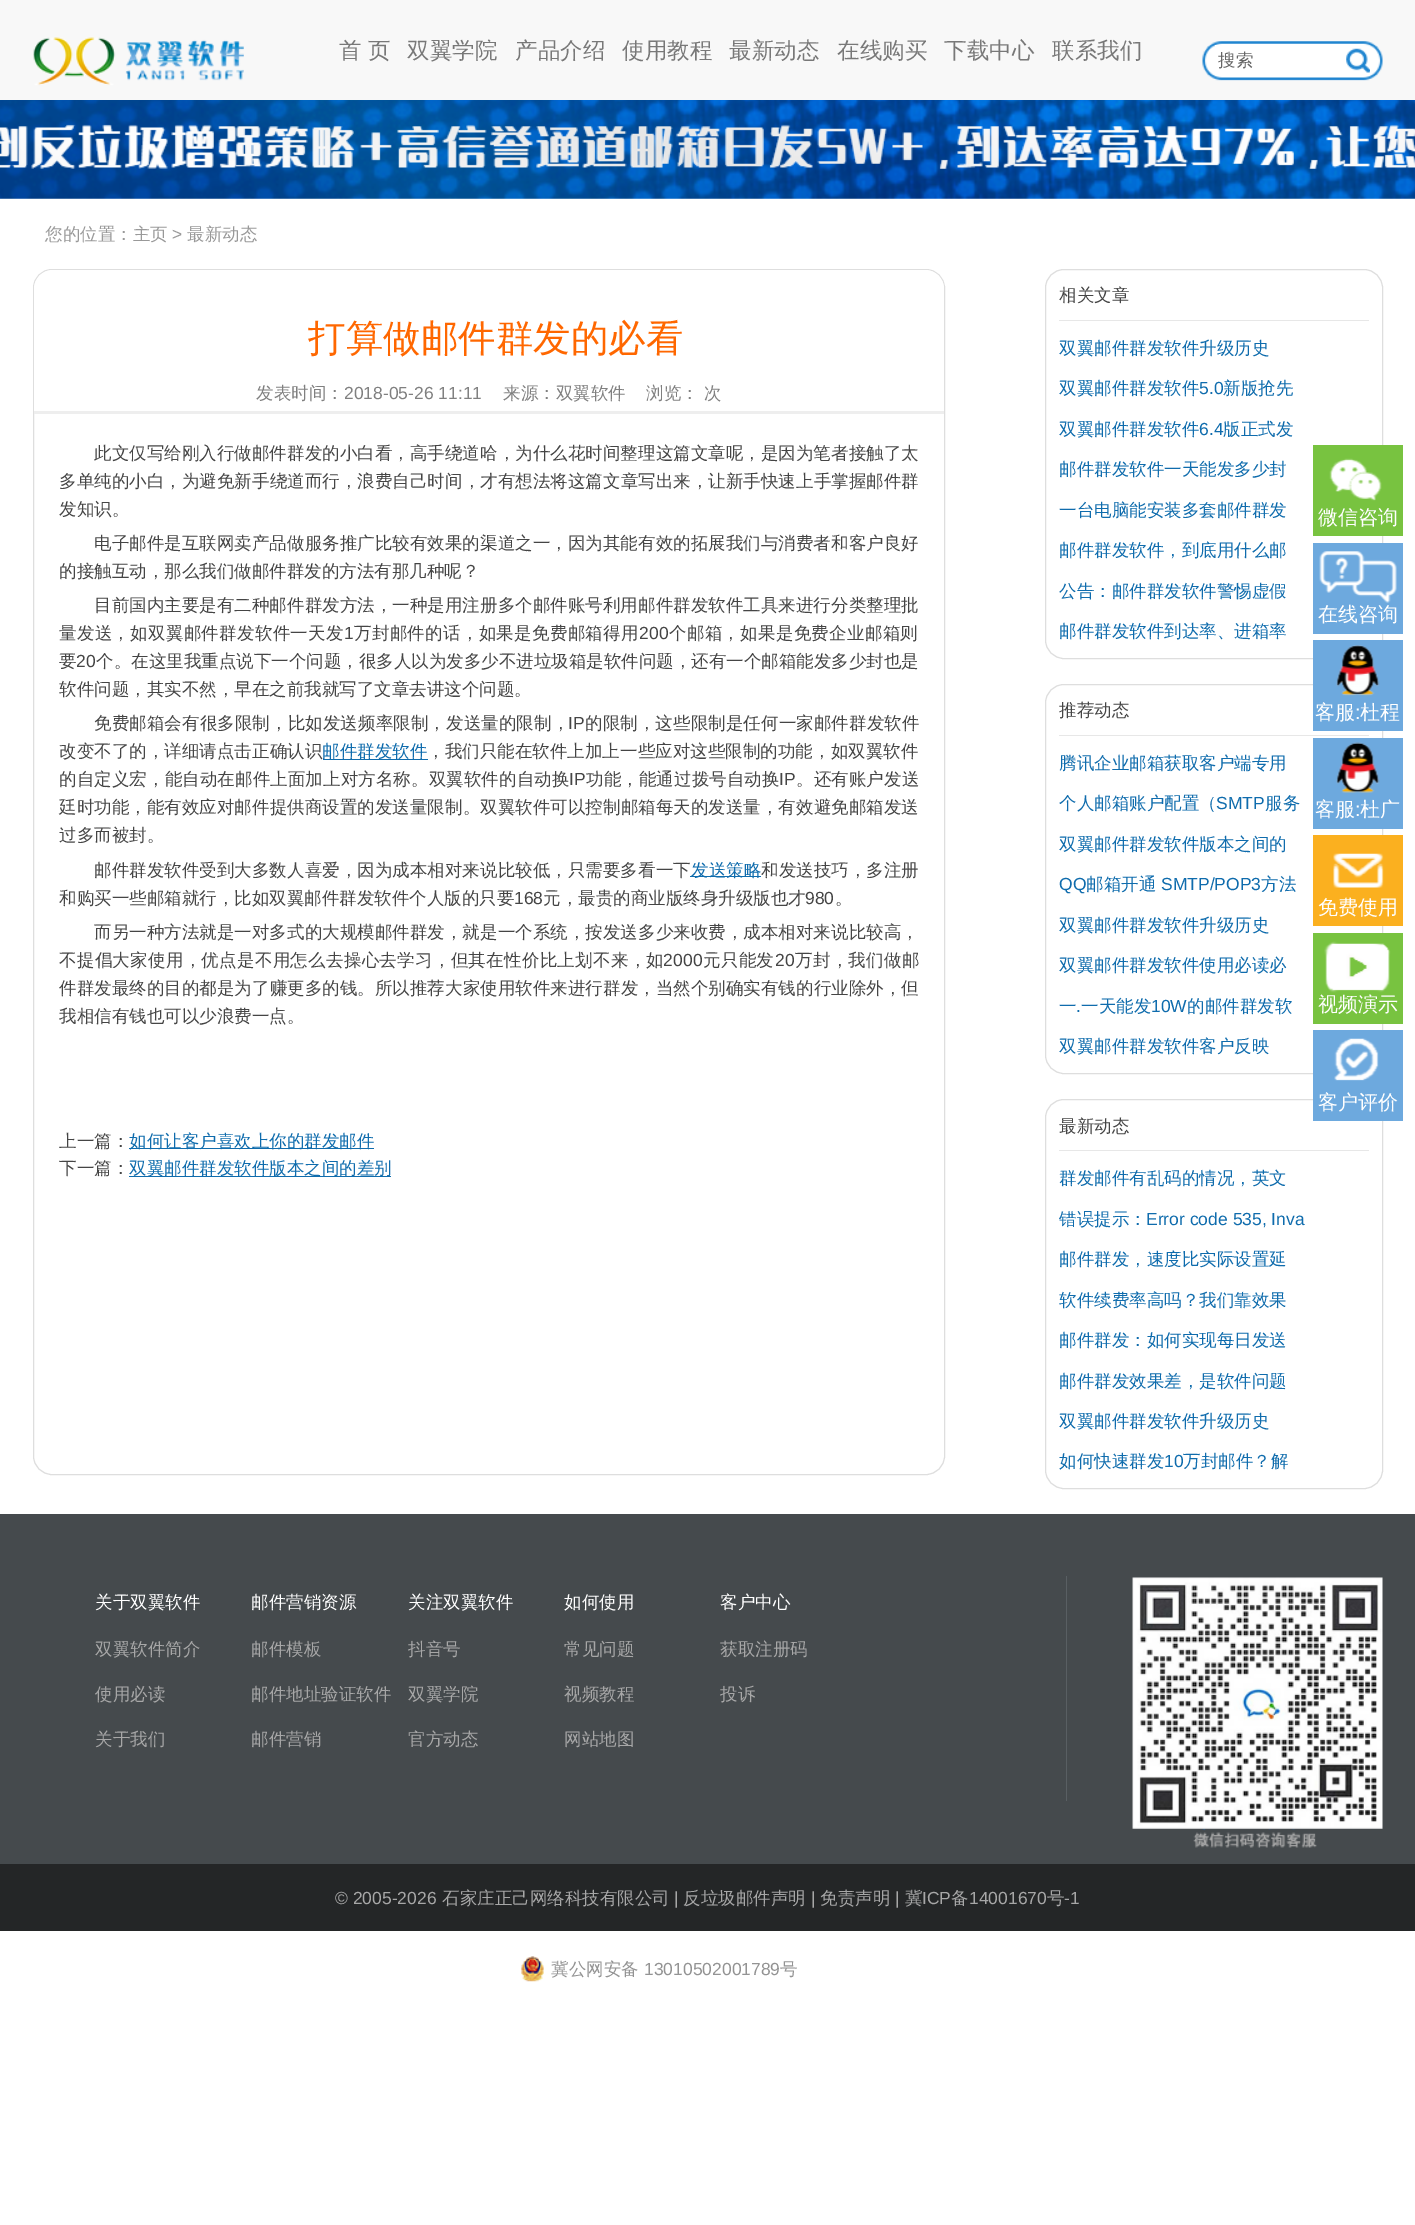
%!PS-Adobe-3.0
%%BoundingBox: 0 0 1415 2225
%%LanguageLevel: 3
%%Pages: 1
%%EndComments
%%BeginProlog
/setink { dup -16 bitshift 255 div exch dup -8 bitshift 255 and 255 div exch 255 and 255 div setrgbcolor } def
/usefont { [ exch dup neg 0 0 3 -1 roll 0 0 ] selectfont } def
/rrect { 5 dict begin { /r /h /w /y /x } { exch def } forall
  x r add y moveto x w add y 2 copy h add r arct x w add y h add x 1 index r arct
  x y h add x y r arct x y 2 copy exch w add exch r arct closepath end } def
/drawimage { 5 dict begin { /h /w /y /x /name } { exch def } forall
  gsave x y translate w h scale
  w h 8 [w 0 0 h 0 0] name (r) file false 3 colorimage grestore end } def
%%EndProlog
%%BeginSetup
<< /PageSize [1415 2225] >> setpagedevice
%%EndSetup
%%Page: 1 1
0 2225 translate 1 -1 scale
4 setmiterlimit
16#FFFFFF setink
0 0 1415 2225 rectfill
16#F8F8F8 setink
0 0 1415 100 rectfill
(img1.raw) 33 37 211 49 drawimage
/WenQuanYiZenHei-Medium 22.5 usefont
16#787878 setink
[
    [(首) 339 58]
    [(页) 368 58]
    [(双翼学院) 407 58]
    [(产品介绍) 515 58]
    [(使用教程) 622 58]
    [(最新动态) 729 58]
    [(在线购买) 837 58]
    [(下载中心) 944 58]
    [(联系我们) 1052 58]
] { aload pop moveto show } forall
(img2.raw) 1202 41 181 40 drawimage
16#FFFFFF setink
1215 45 5 2 rectfill
/WenQuanYiZenHei-Medium 17.5 usefont
16#666666 setink
1218 66 moveto (搜索) show
(img3.raw) 1346 48 24 25 drawimage
(img4.raw) 0 100 1415 99 drawimage
16#999999 setink
45 240 moveto (您的位置：主页) show
/LiberationSans-Regular 17.5 usefont
172 240 moveto (>) show
/WenQuanYiZenHei-Medium 17.5 usefont
187 240 moveto (最新动态) show
16#DEDEDE setink
33.5 269.5 911 1205 18.5 rrect stroke
16#FFFFFF setink
53 270 moveto 925 270 lineto 935.5 270 944 278.5 944 289 curveto 944 414 lineto 34 414 lineto 34 289 lineto 34 278.5 42.5 270 53 270 curveto closepath fill
16#EEEEEE setink
34 411 910 3 rectfill
/WenQuanYiZenHei-Medium 37.5 usefont
16#FF6700 setink
308 351 moveto (打算做邮件群发的必看) show
/WenQuanYiZenHei-Medium 17.5 usefont
16#808080 setink
256 399 moveto (发表时间：) show
/LiberationSans-Regular 17.5 usefont
344 399 moveto (2018-05-26 11:11) show
/WenQuanYiZenHei-Medium 17.5 usefont
[
    [(来源：双翼软件) 503 399]
    [(浏览：) 646 399]
    [(次) 704 399]
] { aload pop moveto show } forall
16#454545 setink
94 459 moveto 0.05 0 (此文仅写给刚入行做邮件群发的小白看，高手绕道哈，为什么花时间整理这篇文章呢，是因为笔者接触了太) ashow
59 487 moveto 0.05 0 (多单纯的小白，为避免新手绕道而行，浪费自己时间，才有想法将这篇文章写出来，让新手快速上手掌握邮件群) ashow
59 515 moveto (发知识。) show
94 549 moveto 0.05 0 (电子邮件是互联网卖产品做服务推广比较有效果的渠道之一，因为其能有效的拓展我们与消费者和客户良好) ashow
59 577 moveto (的接触互动，那么我们做邮件群发的方法有那几种呢？) show
94 611 moveto 0.05 0 (目前国内主要是有二种邮件群发方法，一种是用注册多个邮件账号利用邮件群发软件工具来进行分类整理批) ashow
59 639 moveto 0.3 0 (量发送，如双翼邮件群发软件一天发) ashow
/LiberationSans-Regular 17.5 usefont
344 639 moveto 0.3 0 (1) ashow
/WenQuanYiZenHei-Medium 17.5 usefont
354 639 moveto 0.3 0 (万封邮件的话，如果是免费邮箱得用) ashow
/LiberationSans-Regular 17.5 usefont
639 639 moveto 0.3 0 (200) ashow
/WenQuanYiZenHei-Medium 17.5 usefont
669 639 moveto 0.3 0 (个邮箱，如果是免费企业邮箱则) ashow
59 667 moveto (要) show
/LiberationSans-Regular 17.5 usefont
76 667 moveto (20) show
/WenQuanYiZenHei-Medium 17.5 usefont
96 667 moveto (个。在这里我重点说下一个问题，很多人以为发多少不进垃圾箱是软件问题，还有一个邮箱能发多少封也是) show
59 695 moveto (软件问题，其实不然，早在之前我就写了文章去讲这个问题。) show
94 729 moveto 0.1 0 (免费邮箱会有很多限制，比如发送频率限制，发送量的限制，) ashow
/LiberationSans-Regular 17.5 usefont
568 729 moveto 0.1 0 (IP) ashow
/WenQuanYiZenHei-Medium 17.5 usefont
585 729 moveto 0.1 0 (的限制，这些限制是任何一家邮件群发软件) ashow
59 757 moveto 0.05 0 (改变不了的，详细请点击正确认识) ashow
16#0F6CAD setink
323 759 105 1 rectfill
322 757 moveto (邮件群发软件) show
16#454545 setink
427 757 moveto 0.05 0 (，我们只能在软件上加上一些应对这些限制的功能，如双翼软件) ashow
59 785 moveto 0.1 0 (的自定义宏，能自动在邮件上面加上对方名称。双翼软件的自动换) ashow
/LiberationSans-Regular 17.5 usefont
569 785 moveto 0.1 0 (IP) ashow
/WenQuanYiZenHei-Medium 17.5 usefont
586 785 moveto 0.1 0 (功能，能通过拨号自动换) ashow
/LiberationSans-Regular 17.5 usefont
779 785 moveto 0.1 0 (IP) ashow
/WenQuanYiZenHei-Medium 17.5 usefont
796 785 moveto 0.1 0 (。还有账户发送) ashow
59 813 moveto 0.05 0 (廷时功能，能有效应对邮件提供商设置的发送量限制。双翼软件可以控制邮箱每天的发送量，有效避免邮箱发送) ashow
59 841 moveto (过多而被封。) show
94 876 moveto 0.05 0 (邮件群发软件受到大多数人喜爱，因为成本相对来说比较低，只需要多看一下) ashow
16#0F6CAD setink
690 876 71 1 rectfill
691 876 moveto (发送策略) show
16#454545 setink
761 876 moveto 0.05 0 (和发送技巧，多注册) ashow
59 904 moveto (和购买一些邮箱就行，比如双翼邮件群发软件个人版的只要) show
/LiberationSans-Regular 17.5 usefont
514 904 moveto (168) show
/WenQuanYiZenHei-Medium 17.5 usefont
543 904 moveto (元，最贵的商业版终身升级版也才) show
/LiberationSans-Regular 17.5 usefont
805 904 moveto (980) show
/WenQuanYiZenHei-Medium 17.5 usefont
835 904 moveto (。) show
94 938 moveto 0.05 0 (而另一种方法就是一对多式的大规模邮件群发，就是一个系统，按发送多少来收费，成本相对来说比较高，) ashow
59 966 moveto 0.3 0 (不提倡大家使用，优点是不用怎么去操心去学习，但其在性价比上划不来，如) ashow
/LiberationSans-Regular 17.5 usefont
663 966 moveto 0.3 0 (2000) ashow
/WenQuanYiZenHei-Medium 17.5 usefont
703 966 moveto 0.3 0 (元只能发) ashow
/LiberationSans-Regular 17.5 usefont
775 966 moveto 0.3 0 (20) ashow
/WenQuanYiZenHei-Medium 17.5 usefont
795 966 moveto 0.3 0 (万封，我们做邮) ashow
59 994 moveto 0.05 0 (件群发最终的目的都是为了赚更多的钱。所以推荐大家使用软件来进行群发，当然个别确实有钱的行业除外，但) ashow
59 1022 moveto (我相信有钱也可以少浪费一点。) show
59 1147 moveto (上一篇：) show
16#0F6CAD setink
129 1148 245 1 rectfill
129 1147 moveto (如何让客户喜欢上你的群发邮件) show
16#454545 setink
59 1174 moveto (下一篇：) show
16#0F6CAD setink
129 1176 262 1 rectfill
129 1174 moveto (双翼邮件群发软件版本之间的差别) show
16#DEDEDE setink
1045.5 269.5 337 389 18.5 rrect stroke
16#E7E7E7 setink
1059 320 310 1 rectfill
16#454545 setink
1059 301 moveto (相关文章) show
16#0F6CAD setink
1059 354 moveto (双翼邮件群发软件升级历史) show
1059 394 moveto (双翼邮件群发软件) show
/LiberationSans-Regular 17.5 usefont
1199 394 moveto (5.0) show
/WenQuanYiZenHei-Medium 17.5 usefont
1223 394 moveto (新版抢先) show
1059 435 moveto (双翼邮件群发软件) show
/LiberationSans-Regular 17.5 usefont
1199 435 moveto (6.4) show
/WenQuanYiZenHei-Medium 17.5 usefont
[
    [(版正式发) 1223 435]
    [(邮件群发软件一天能发多少封) 1059 475]
    [(一台电脑能安装多套邮件群发) 1059 516]
    [(邮件群发软件，到底用什么邮) 1059 556]
    [(公告：邮件群发软件警惕虚假) 1059 597]
    [(邮件群发软件到达率、进箱率) 1059 637]
] { aload pop moveto show } forall
16#DEDEDE setink
1045.5 684.5 337 389 18.5 rrect stroke
16#E7E7E7 setink
1059 735 310 1 rectfill
16#454545 setink
1059 716 moveto (推荐动态) show
16#0F6CAD setink
1059 769 moveto (腾讯企业邮箱获取客户端专用) show
1059 809 moveto (个人邮箱账户配置（) show
/LiberationSans-Regular 17.5 usefont
1216 809 moveto (SMTP) show
/WenQuanYiZenHei-Medium 17.5 usefont
1265 809 moveto (服务) show
1059 850 moveto (双翼邮件群发软件版本之间的) show
/LiberationSans-Regular 17.5 usefont
1059 890 moveto (QQ) show
/WenQuanYiZenHei-Medium 17.5 usefont
1086 890 moveto (邮箱开通) show
/LiberationSans-Regular 17.5 usefont
1161 890 moveto (SMTP/POP3) show
/WenQuanYiZenHei-Medium 17.5 usefont
[
    [(方法) 1261 890]
    [(双翼邮件群发软件升级历史) 1059 931]
    [(双翼邮件群发软件使用必读必) 1059 971]
    [(一) 1059 1012]
    [(一天能发) 1081 1012]
] { aload pop moveto show } forall
/LiberationSans-Regular 17.5 usefont
1151 1012 moveto (10W) show
/WenQuanYiZenHei-Medium 17.5 usefont
1187 1012 moveto (的邮件群发软) show
/LiberationSans-Regular 17.5 usefont
1076 1012 moveto (.) show
/WenQuanYiZenHei-Medium 17.5 usefont
1059 1052 moveto (双翼邮件群发软件客户反映) show
16#DEDEDE setink
1045.5 1099.5 337 389 18.5 rrect stroke
16#E7E7E7 setink
1059 1150 310 1 rectfill
16#454545 setink
1059 1132 moveto (最新动态) show
16#0F6CAD setink
1059 1184 moveto (群发邮件有乱码的情况，英文) show
1059 1225 moveto (错误提示：) show
/LiberationSans-Regular 17.5 usefont
1146 1225 moveto (Error code 535, Inva) show
/WenQuanYiZenHei-Medium 17.5 usefont
[
    [(邮件群发，速度比实际设置延) 1059 1265]
    [(软件续费率高吗？我们靠效果) 1059 1306]
    [(邮件群发：如何实现每日发送) 1059 1346]
    [(邮件群发效果差，是软件问题) 1059 1387]
    [(双翼邮件群发软件升级历史) 1059 1427]
    [(如何快速群发) 1059 1467]
] { aload pop moveto show } forall
/LiberationSans-Regular 17.5 usefont
1164 1467 moveto (10) show
/WenQuanYiZenHei-Medium 17.5 usefont
1183 1467 moveto (万封邮件？解) show
16#78C340 setink
1313 445 90 91 rectfill
(img5.raw) 1329 458 53 43 drawimage
/WenQuanYiZenHei-Medium 20 usefont
16#FFFFFF setink
1318 524 moveto (微信咨询) show
16#6DA9DE setink
1313 543 90 91 rectfill
(img6.raw) 1319 551 78 52 drawimage
16#FFFFFF setink
1318 621 moveto (在线咨询) show
16#6DA9DE setink
1313 640 90 91 rectfill
(img7.raw) 1336 645 44 51 drawimage
16#FFFFFF setink
1315 719 moveto (客服) show
/LiberationSans-Regular 20 usefont
1355 719 moveto (:) show
/WenQuanYiZenHei-Medium 20 usefont
1360 719 moveto (杜程) show
16#6DA9DE setink
1313 738 90 91 rectfill
(img8.raw) 1336 742 44 51 drawimage
16#FFFFFF setink
1315 816 moveto (客服) show
/LiberationSans-Regular 20 usefont
1355 816 moveto (:) show
/WenQuanYiZenHei-Medium 20 usefont
1360 816 moveto (杜广) show
16#FBB01F setink
1313 835 90 91 rectfill
(img9.raw) 1333 853 51 35 drawimage
16#FFFFFF setink
1318 914 moveto (免费使用) show
16#78C340 setink
1313 933 90 91 rectfill
(img10.raw) 1324 941 67 52 drawimage
16#FFFFFF setink
1318 1011 moveto (视频演示) show
16#6DA9DE setink
1313 1030 90 91 rectfill
(img11.raw) 1334 1038 45 43 drawimage
16#FFFFFF setink
1318 1109 moveto (客户评价) show
16#454A4D setink
0 1514 1415 350 rectfill
/WenQuanYiZenHei-Medium 17.5 usefont
16#FFFFFF setink
95 1608 moveto (关于双翼软件) show
16#A7A7A7 setink
[
    [(双翼软件简介) 95 1655]
    [(使用必读) 95 1700]
    [(关于我们) 95 1745]
] { aload pop moveto show } forall
16#FFFFFF setink
251 1608 moveto (邮件营销资源) show
16#A7A7A7 setink
[
    [(邮件模板) 251 1655]
    [(邮件地址验证软件) 251 1700]
    [(邮件营销) 251 1745]
] { aload pop moveto show } forall
16#FFFFFF setink
408 1608 moveto (关注双翼软件) show
16#A7A7A7 setink
[
    [(抖音号) 408 1655]
    [(双翼学院) 408 1700]
    [(官方动态) 408 1745]
] { aload pop moveto show } forall
16#FFFFFF setink
564 1608 moveto (如何使用) show
16#A7A7A7 setink
[
    [(常见问题) 564 1655]
    [(视频教程) 564 1700]
    [(网站地图) 564 1745]
] { aload pop moveto show } forall
16#FFFFFF setink
720 1608 moveto (客户中心) show
16#A7A7A7 setink
720 1655 moveto (获取注册码) show
720 1700 moveto (投诉) show
16#595F63 setink
1066 1576 1 225 rectfill
(img12.raw) 1132 1577 251 271 drawimage
16#242627 setink
0 1864 1415 67 rectfill
/LiberationSans-Regular 17.5 usefont
16#A7A7A7 setink
335 1904 moveto (© 2005-2026) show
/WenQuanYiZenHei-Medium 17.5 usefont
442 1904 moveto (石家庄正己网络科技有限公司) show
/LiberationSans-Regular 17.5 usefont
674 1904 moveto (|) show
/WenQuanYiZenHei-Medium 17.5 usefont
683 1904 moveto (反垃圾邮件声明) show
/LiberationSans-Regular 17.5 usefont
811 1904 moveto (|) show
/WenQuanYiZenHei-Medium 17.5 usefont
820 1904 moveto (免责声明) show
/LiberationSans-Regular 17.5 usefont
895 1904 moveto (|) show
/WenQuanYiZenHei-Medium 17.5 usefont
905 1904 moveto (冀) show
/LiberationSans-Regular 17.5 usefont
922 1904 moveto (ICP) show
/WenQuanYiZenHei-Medium 17.5 usefont
951 1904 moveto (备) show
/LiberationSans-Regular 17.5 usefont
969 1904 moveto (14001670) show
/WenQuanYiZenHei-Medium 17.5 usefont
1047 1904 moveto (号) show
/LiberationSans-Regular 17.5 usefont
1064 1904 moveto (-1) show
(img13.raw) 521 1956 23 26 drawimage
/WenQuanYiZenHei-Medium 17.5 usefont
16#939393 setink
551 1975 moveto (冀公网安备) show
/LiberationSans-Regular 17.5 usefont
644 1975 moveto (13010502001789) show
/WenQuanYiZenHei-Medium 17.5 usefont
780 1975 moveto (号) show
showpage
%%EOF
